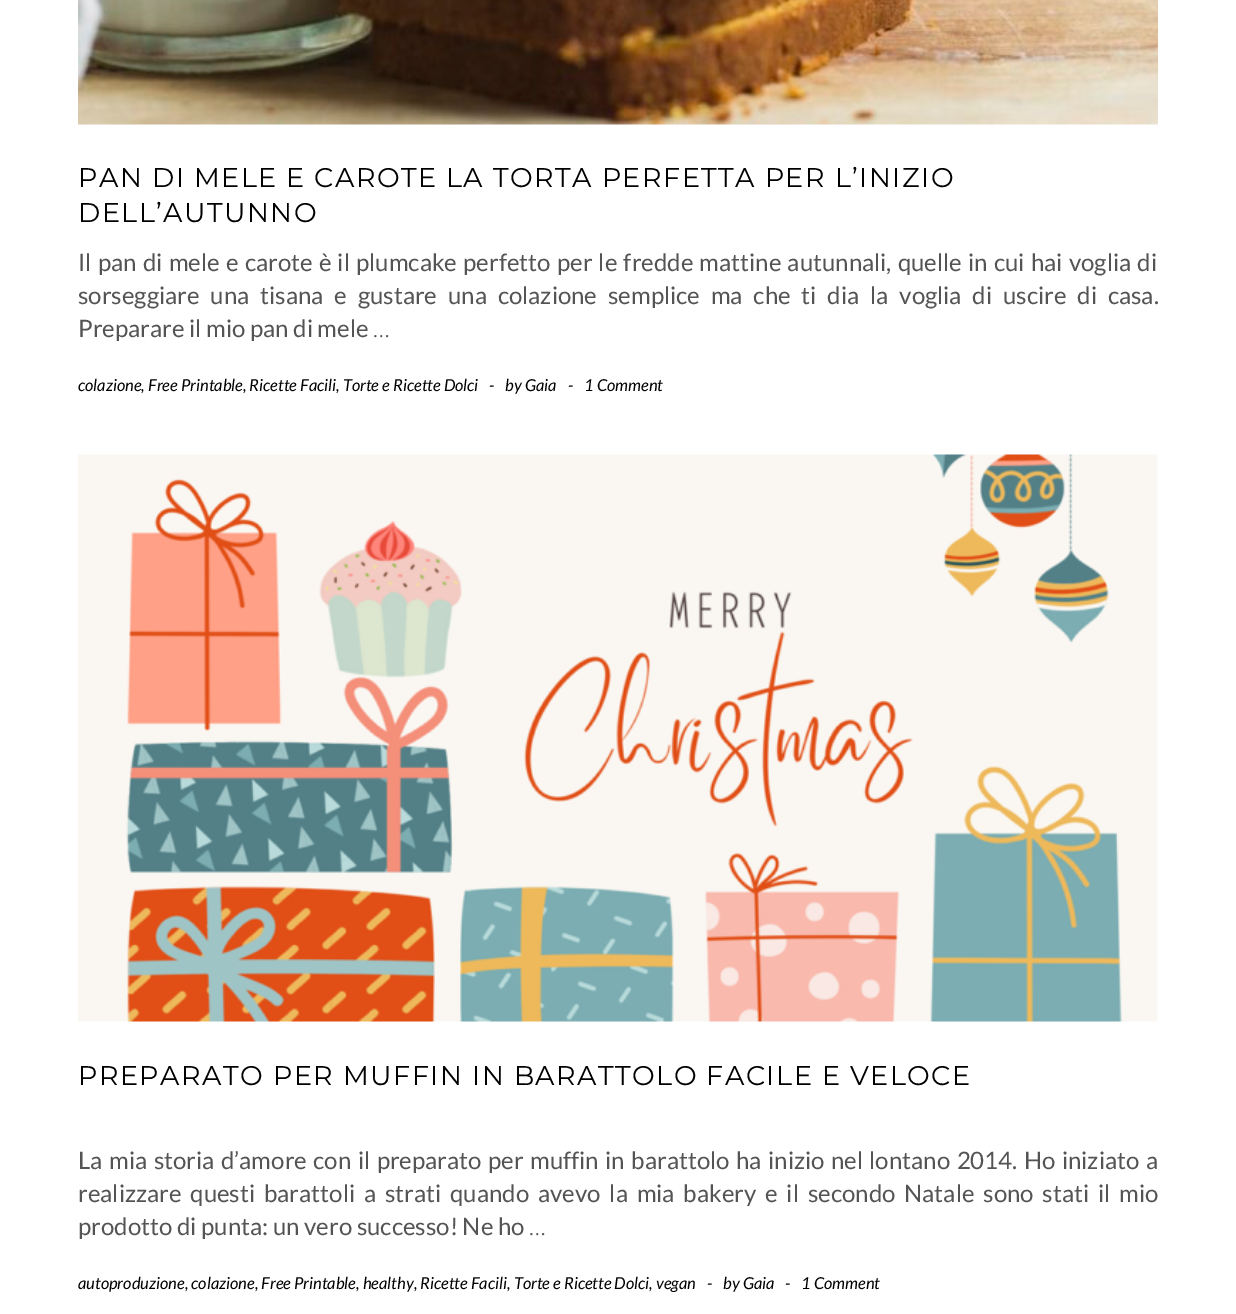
%!PS-Adobe-3.0
%%BoundingBox: 0 0 1236 1314
%%LanguageLevel: 3
%%Pages: 1
%%EndComments
%%BeginProlog
/setink { dup -16 bitshift 255 div exch dup -8 bitshift 255 and 255 div exch 255 and 255 div setrgbcolor } def
/usefont { [ exch dup neg 0 0 3 -1 roll 0 0 ] selectfont } def
/drawimage { 5 dict begin { /h /w /y /x /name } { exch def } forall
  gsave x y translate w h scale
  w h 8 [w 0 0 h 0 0] name (r) file false 3 colorimage grestore end } def
%%EndProlog
%%BeginSetup
<< /PageSize [1236 1314] >> setpagedevice
%%EndSetup
%%Page: 1 1
0 1314 translate 1 -1 scale
4 setmiterlimit
16#FFFFFF setink
0 0 1236 1314 rectfill
(img1.raw) 78 0 1080 125 drawimage
/Montserrat-Regular 27 usefont
16#000000 setink
78 187 moveto 1.5 0 (PAN DI MELE E CAROTE LA TORTA PERFETTA PER L’INIZIO) ashow
78 222 moveto 1.5 0 (DELL’AUTUNNO) ashow
/Lato-Regular 24 usefont
16#545454 setink
78 271 moveto 1.6 0 32 (Il pan di mele e carote è il plumcake perfetto per le fredde mattine autunnali, quelle in cui hai voglia di) widthshow
78 304 moveto 6.25 0 32 (sorseggiare una tisana e gustare una colazione semplice ma che ti dia la voglia di uscire di casa.) widthshow
78 337 moveto (Preparare il mio pan di mele) show
/Lato-Light 24 usefont
373 337 moveto (…) show
/Lato-Italic 16.5 usefont
16#000000 setink
[
    [(colazione, Free Printable, Ricette Facili, Torte e Ricette Dolci) 78 391]
    [(-) 489 391]
    [(by Gaia) 505 391]
    [(-) 568 391]
    [(1 Comment) 584 391]
] { aload pop moveto show } forall
(img2.raw) 78 454 1080 568 drawimage
/Montserrat-Regular 27 usefont
78 1085 moveto 1.5 0 (PREPARATO PER MUFFIN IN BARATTOLO FACILE E VELOCE) ashow
/Lato-Regular 24 usefont
16#545454 setink
78 1169 moveto 1.9 0 32 (La mia storia d’amore con il preparato per muffin in barattolo ha inizio nel lontano 2014. Ho iniziato a) widthshow
78 1202 moveto 4.25 0 32 (realizzare questi barattoli a strati quando avevo la mia bakery e il secondo Natale sono stati il mio) widthshow
78 1235 moveto (prodotto di punta: un vero successo! Ne ho) show
/Lato-Light 24 usefont
529 1235 moveto (…) show
/Lato-Italic 16.5 usefont
16#000000 setink
[
    [(autoproduzione, colazione, Free Printable, healthy, Ricette Facili, Torte e Ricette Dolci, vegan) 78 1289]
    [(-) 707 1289]
    [(by Gaia) 723 1289]
    [(-) 785 1289]
    [(1 Comment) 801 1289]
] { aload pop moveto show } forall
showpage
%%EOF
